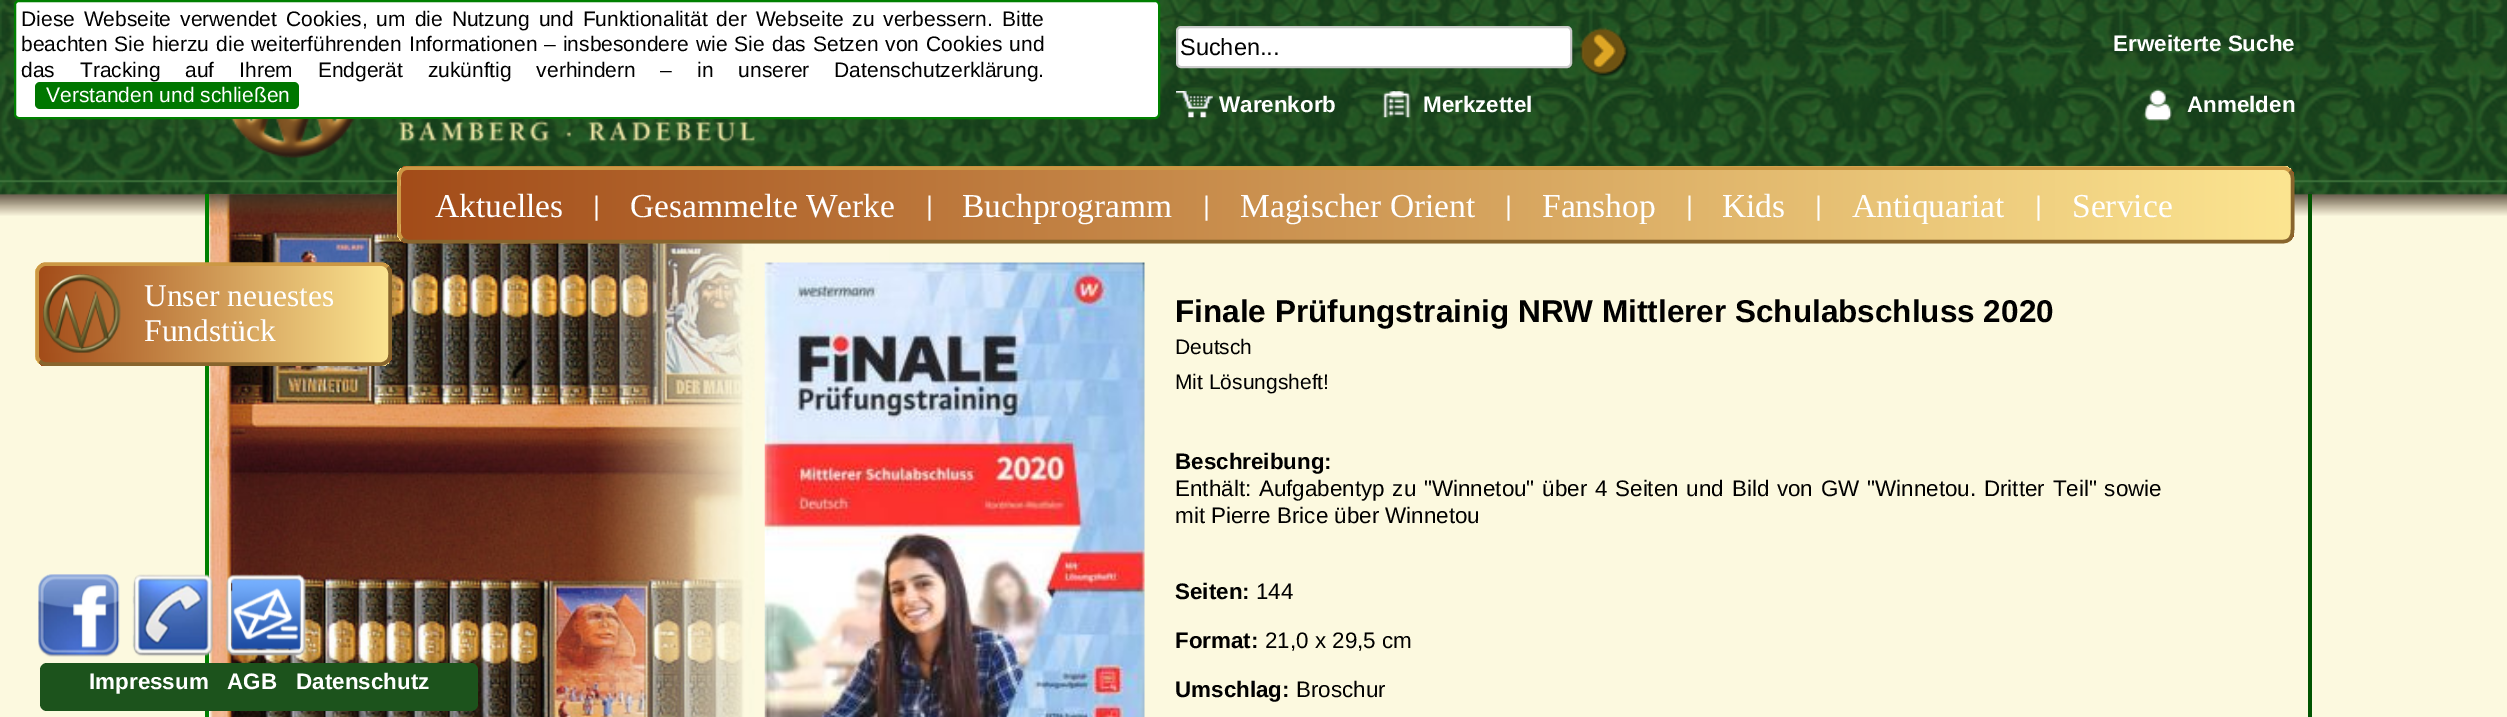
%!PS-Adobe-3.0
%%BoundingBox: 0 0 2507 717
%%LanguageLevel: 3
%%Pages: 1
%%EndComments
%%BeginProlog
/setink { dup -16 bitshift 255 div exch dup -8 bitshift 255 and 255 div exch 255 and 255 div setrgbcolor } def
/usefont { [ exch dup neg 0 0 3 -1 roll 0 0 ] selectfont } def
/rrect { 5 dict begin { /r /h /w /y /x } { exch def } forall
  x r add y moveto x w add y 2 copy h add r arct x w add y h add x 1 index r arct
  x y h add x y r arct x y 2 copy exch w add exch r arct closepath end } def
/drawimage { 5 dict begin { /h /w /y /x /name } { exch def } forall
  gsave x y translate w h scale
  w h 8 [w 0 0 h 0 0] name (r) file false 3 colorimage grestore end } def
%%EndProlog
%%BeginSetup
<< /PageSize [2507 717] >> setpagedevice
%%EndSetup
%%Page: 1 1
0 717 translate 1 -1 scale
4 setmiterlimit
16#FCF9DF setink
0 0 2507 717 rectfill
(img1.raw) 0 0 2507 216 drawimage
16#FFFFFF setink
15 1 1144 117 4 rrect gsave fill grestore
16#008000 setink
2 setlinewidth
stroke
/LiberationSans-Regular 21 usefont
16#000000 setink
21 26 moveto 3.1 0 32 (Diese Webseite verwendet Cookies, um die Nutzung und Funktionalität der Webseite zu verbessern. Bitte) widthshow
21 51 moveto 1.25 0 32 (beachten Sie hierzu die weiterführenden Informationen) widthshow
544 51 moveto 1.25 0 32 (– insbesondere wie Sie das Setzen von Cookies und) widthshow
21 77 moveto 19 0 32 (das Tracking auf Ihrem Endgerät zukünftig verhindern – in unserer Datenschutzerklärung.) widthshow
16#007700 setink
35 82 264 27 5 rrect fill
16#FFFFFF setink
46 102 moveto (Verstanden und schließen) show
1177 27 394 40 4 rrect gsave fill grestore
16#CCCCCC setink
stroke
/LiberationSans-Regular 23.5 usefont
16#000000 setink
1180 55 moveto (Suchen...) show
(img2.raw) 1580 27 49 50 drawimage
/LiberationSans-Bold 22.4 usefont
16#FFFFFF setink
2113 51 moveto (Erweiterte Suche) show
(img3.raw) 1176 91 37 27 drawimage
1219 112 moveto (Warenkorb) show
(img4.raw) 1382 91 29 27 drawimage
1423 112 moveto (Merkzettel) show
(img5.raw) 2143 89 29 32 drawimage
2187 112 moveto (Anmelden) show
(img6.raw) 231 119 525 39 drawimage
(img7.raw) 209 194 680 523 drawimage
gsave
397 166 1897 77 11 rrect clip newpath
gsave 397 166 moveto 401 166 lineto 401 243 lineto 397 243 lineto closepath clip newpath
<< /ShadingType 2 /ColorSpace /DeviceRGB /Coords [-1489 205 401 205] /Extend [true true] /Function << /FunctionType 2 /Domain [0 1] /C0 [0.639 0.298 0.098] /C1 [0.988 0.898 0.569] /N 1 >> >> shfill grestore
gsave 401 166 moveto 2291 166 lineto 2291 243 lineto 401 243 lineto closepath clip newpath
<< /ShadingType 2 /ColorSpace /DeviceRGB /Coords [401 205 2291 205] /Extend [true true] /Function << /FunctionType 2 /Domain [0 1] /C0 [0.639 0.298 0.098] /C1 [0.988 0.898 0.569] /N 1 >> >> shfill grestore
gsave 2291 166 moveto 2294 166 lineto 2294 243 lineto 2291 243 lineto closepath clip newpath
<< /ShadingType 2 /ColorSpace /DeviceRGB /Coords [2291 205 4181 205] /Extend [true true] /Function << /FunctionType 2 /Domain [0 1] /C0 [0.639 0.298 0.098] /C1 [0.988 0.898 0.569] /N 1 >> >> shfill grestore
grestore
16#88652D setink
3.5 setlinewidth
2289.5 171 moveto 2294 175 2292.5 181.5 2292.5 186.5 curveto 2292.5 223 lineto 2292.5 230 2294 241.5 2283 241.5 curveto 408.5 241.5 lineto 406 241.5 403.5 240.5 402 238.5 curveto stroke
16#CC9844 setink
402 238.5 moveto 397.5 234.5 399 228 399 223 curveto 399 186.5 lineto 399 179.5 397.5 168 408.5 168 curveto 2283 168 lineto 2285.5 168 2288 169 2289.5 171 curveto stroke
/Tinos-Regular 33.5 usefont
16#FFFFFF setink
435 217 moveto (Aktuelles) show
/LiberationSans-Regular 27 usefont
593 215 moveto (|) show
/Tinos-Regular 33.5 usefont
630 217 moveto (Gesammelte Werke) show
/LiberationSans-Regular 27 usefont
926 215 moveto (|) show
/Tinos-Regular 33.5 usefont
962 217 moveto (Buchprogramm) show
/LiberationSans-Regular 27 usefont
1203 215 moveto (|) show
/Tinos-Regular 33.5 usefont
1240 217 moveto (Magischer Orient) show
/LiberationSans-Regular 27 usefont
1505 215 moveto (|) show
/Tinos-Regular 33.5 usefont
1542 217 moveto (Fanshop) show
/LiberationSans-Regular 27 usefont
1686 215 moveto (|) show
/Tinos-Regular 33.5 usefont
1722 217 moveto (Kids) show
/LiberationSans-Regular 27 usefont
1815 215 moveto (|) show
/Tinos-Regular 33.5 usefont
1852 217 moveto (Antiquariat) show
/LiberationSans-Regular 27 usefont
2035 215 moveto (|) show
/Tinos-Regular 33.5 usefont
2072 217 moveto (Service) show
16#005500 setink
2308 194 4 523 rectfill
16#008000 setink
205 194 4 523 rectfill
gsave
35 263 357 103 11 rrect clip newpath
gsave 35 263 moveto 39 263 lineto 39 366 lineto 35 366 lineto closepath clip newpath
<< /ShadingType 2 /ColorSpace /DeviceRGB /Coords [-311 314 39 314] /Extend [true true] /Function << /FunctionType 2 /Domain [0 1] /C0 [0.639 0.298 0.098] /C1 [0.988 0.898 0.569] /N 1 >> >> shfill grestore
gsave 39 263 moveto 389 263 lineto 389 366 lineto 39 366 lineto closepath clip newpath
<< /ShadingType 2 /ColorSpace /DeviceRGB /Coords [39 314 389 314] /Extend [true true] /Function << /FunctionType 2 /Domain [0 1] /C0 [0.639 0.298 0.098] /C1 [0.988 0.898 0.569] /N 1 >> >> shfill grestore
gsave 389 263 moveto 392 263 lineto 392 366 lineto 389 366 lineto closepath clip newpath
<< /ShadingType 2 /ColorSpace /DeviceRGB /Coords [389 314 739 314] /Extend [true true] /Function << /FunctionType 2 /Domain [0 1] /C0 [0.639 0.298 0.098] /C1 [0.988 0.898 0.569] /N 1 >> >> shfill grestore
grestore
16#88652D setink
387.5 267 moveto 389.5 269 390 271 390 273.5 curveto 390 354.5 lineto 390 357 389.5 359.5 387.5 361 curveto 385.5 363 383.5 364 381 364 curveto 46 364 lineto 43.5 364 41.5 363 39.5 361 curveto stroke
16#CC9844 setink
39.5 361 moveto 37.5 359.5 37 357 37 354.5 curveto 37 273.5 lineto 37 271 37.5 269 39.5 267 curveto 41.5 265 43.5 264 46 264 curveto 381 264 lineto 383.5 264 385.5 265 387.5 267 curveto stroke
(img8.raw) 43 274 78 79 drawimage
/Tinos-Regular 31.5 usefont
16#FFFFFF setink
144 306 moveto (Unser neuestes) show
144 341 moveto (Fundstück) show
(img9.raw) 38 574 82 83 drawimage
(img10.raw) 132 574 81 83 drawimage
(img11.raw) 225 574 81 83 drawimage
16#1C531C setink
40 663 438 48 7 rrect fill
/LiberationSans-Bold 22.4 usefont
16#FFFFFF setink
[
    [(Impressum) 89 689]
    [(AGB) 227 689]
    [(Datenschutz) 296 689]
] { aload pop moveto show } forall
(img12.raw) 764 262 381 455 drawimage
/LiberationSans-Bold 31.5 usefont
16#000000 setink
1175 322 moveto (Finale Prüfungstrainig NRW Mittlerer Schulabschluss 2020) show
/LiberationSans-Regular 21 usefont
1175 354 moveto (Deutsch) show
1175 389 moveto (Mit Lösungsheft!) show
/LiberationSans-Bold 22.4 usefont
1175 469 moveto (Beschreibung:) show
/LiberationSans-Regular 22.4 usefont
1175 496 moveto 1.6 0 32 (Enthält: Aufgabentyp zu "Winnetou" über 4 Seiten und Bild von GW "Winnetou. Dritter Teil" sowie) widthshow
1175 523 moveto (mit Pierre Brice über Winnetou) show
/LiberationSans-Bold 22.4 usefont
1175 599 moveto (Seiten:) show
/LiberationSans-Regular 22.4 usefont
1256 599 moveto (144) show
/LiberationSans-Bold 22.4 usefont
1175 648 moveto (Format:) show
/LiberationSans-Regular 22.4 usefont
1265 648 moveto (21,0 x 29,5 cm) show
/LiberationSans-Bold 22.4 usefont
1175 697 moveto (Umschlag:) show
/LiberationSans-Regular 22.4 usefont
1296 697 moveto (Broschur) show
showpage
%%EOF
